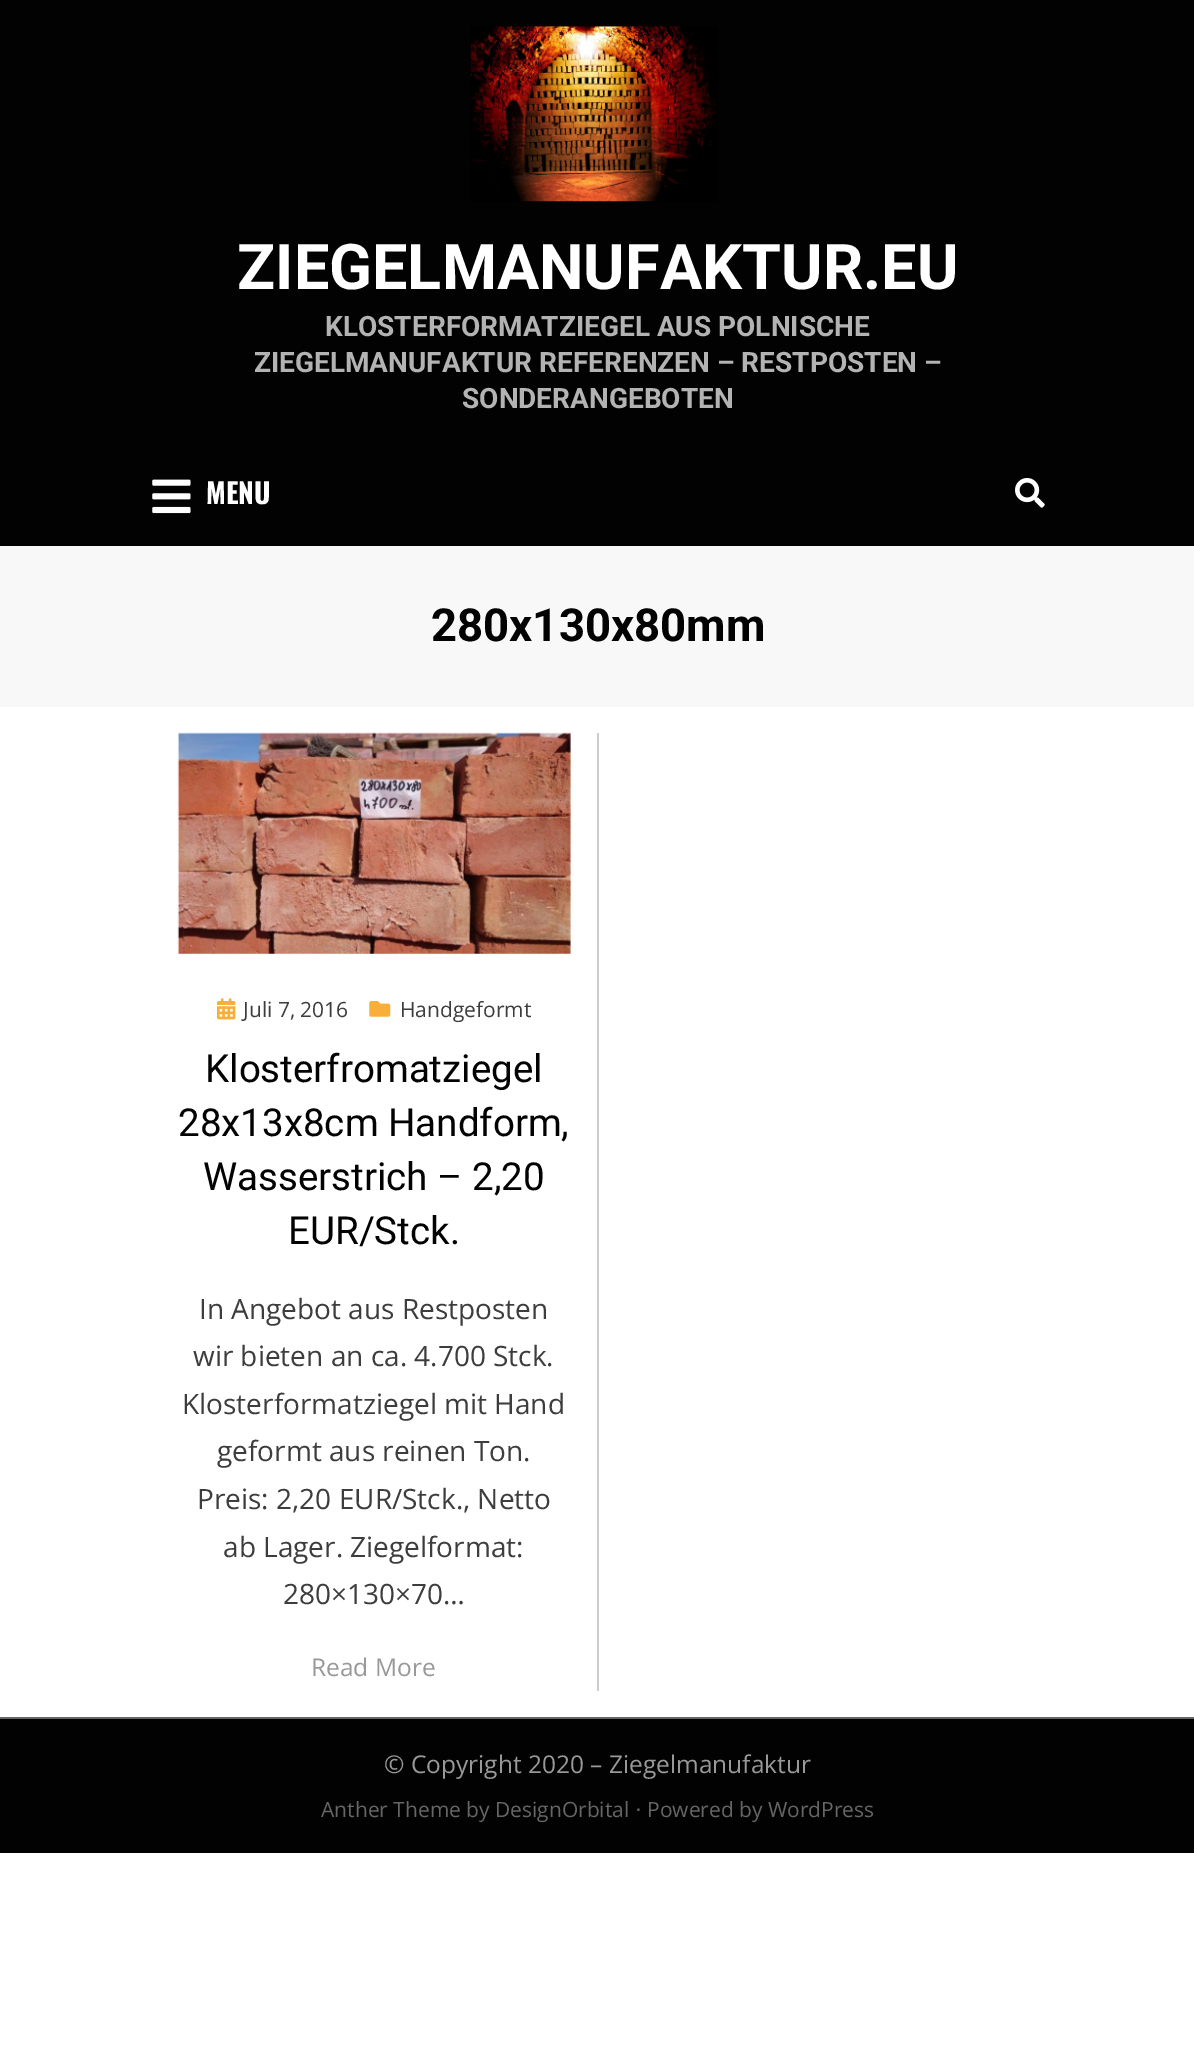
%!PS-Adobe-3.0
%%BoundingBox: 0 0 1194 2052
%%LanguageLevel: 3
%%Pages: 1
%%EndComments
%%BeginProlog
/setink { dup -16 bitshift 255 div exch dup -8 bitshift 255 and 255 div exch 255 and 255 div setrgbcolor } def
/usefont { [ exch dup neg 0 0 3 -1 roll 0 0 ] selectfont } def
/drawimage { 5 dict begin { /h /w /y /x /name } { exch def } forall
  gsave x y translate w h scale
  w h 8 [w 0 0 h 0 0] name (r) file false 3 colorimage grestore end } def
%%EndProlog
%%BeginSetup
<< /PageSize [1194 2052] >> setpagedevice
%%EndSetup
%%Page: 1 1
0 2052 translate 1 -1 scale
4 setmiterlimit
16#FFFFFF setink
0 0 1194 2052 rectfill
16#020202 setink
0 0 1194 546 rectfill
(img1.raw) 470 26 248 176 drawimage
/Roboto-Bold 63 usefont
16#FFFFFF setink
237 289 moveto (ZIEGELMANUFAKTUR.EU) show
/Roboto-Bold 28 usefont
16#B3B3B3 setink
[
    [(KLOSTERFORMATZIEGEL AUS POLNISCHE) 325 336]
    [(ZIEGELMANUFAKTUR REFERENZEN – RESTPOSTEN –) 254 372]
    [(SONDERANGEBOTEN) 462 408]
] { aload pop moveto show } forall
(img2.raw) 152 479 39 35 drawimage
/Oswald-Bold 28 usefont
16#FFFFFF setink
206 504 moveto (MENU) show
(img3.raw) 1015 478 30 30 drawimage
16#F8F8F8 setink
0 546 1194 161 rectfill
/Roboto-Bold 45.5 usefont
16#020202 setink
431 641 moveto (280x130x80mm) show
16#CCCCCC setink
597 733 2 958 rectfill
(img4.raw) 177 732 394 222 drawimage
(img5.raw) 217 998 19 22 drawimage
/OpenSans-Regular 21 usefont
16#3D3D3D setink
243 1017 moveto (Juli 7, 2016) show
(img6.raw) 369 1001 22 16 drawimage
400 1017 moveto (Handgeformt) show
/Roboto-Regular 38.5 usefont
16#020202 setink
[
    [(Klosterfromatziegel) 205 1082]
    [(28x13x8cm Handform,) 178 1136]
    [(Wasserstrich – 2,20) 203 1190]
    [(EUR/Stck.) 288 1244]
] { aload pop moveto show } forall
/OpenSans-Regular 28 usefont
16#3D3D3D setink
[
    [(In Angebot aus Restposten) 199 1319]
    [(wir bieten an ca. 4.700 Stck.) 193 1366]
    [(Klosterformatziegel mit Hand) 182 1414]
    [(geformt aus reinen Ton.) 217 1461]
    [(Preis: 2,20 EUR/Stck., Netto) 197 1509]
    [(ab Lager. Ziegelformat:) 223 1557]
    [(280×130×70…) 283 1604]
] { aload pop moveto show } forall
/OpenSans-Regular 24.5 usefont
16#999999 setink
311 1676 moveto (Read More) show
16#020202 setink
0 1719 1194 134 rectfill
16#666666 setink
0 1717 1194 2 rectfill
16#999999 setink
384 1773 moveto (© Copyright 2020 – Ziegelmanufaktur) show
/OpenSans-Regular 21 usefont
16#666666 setink
321 1817 moveto (Anther Theme by DesignOrbital) show
/DejaVuSans-Regular 21 usefont
635 1817 moveto (⋅) show
/OpenSans-Regular 21 usefont
647 1817 moveto (Powered by WordPress) show
showpage
%%EOF
